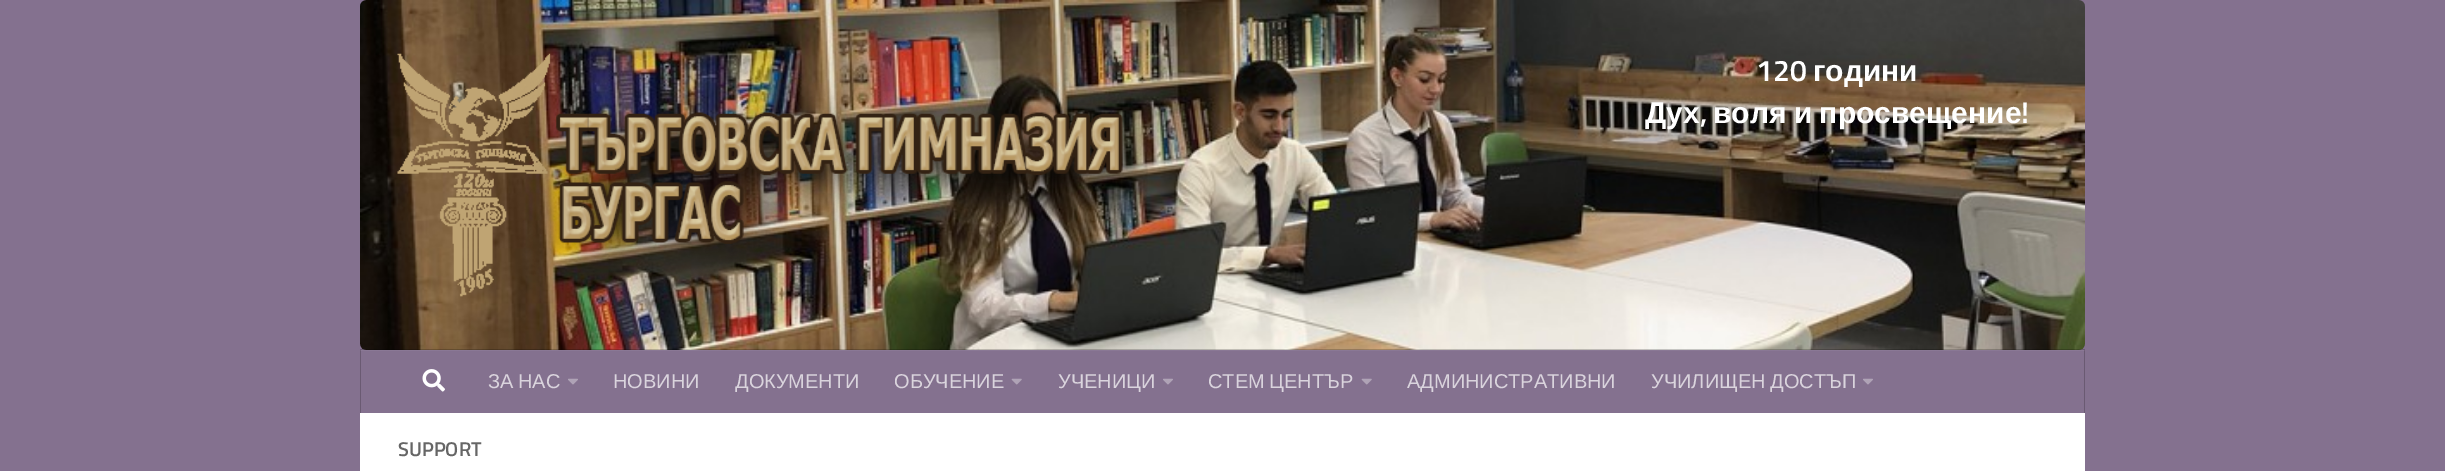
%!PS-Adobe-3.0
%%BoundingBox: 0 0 2445 471
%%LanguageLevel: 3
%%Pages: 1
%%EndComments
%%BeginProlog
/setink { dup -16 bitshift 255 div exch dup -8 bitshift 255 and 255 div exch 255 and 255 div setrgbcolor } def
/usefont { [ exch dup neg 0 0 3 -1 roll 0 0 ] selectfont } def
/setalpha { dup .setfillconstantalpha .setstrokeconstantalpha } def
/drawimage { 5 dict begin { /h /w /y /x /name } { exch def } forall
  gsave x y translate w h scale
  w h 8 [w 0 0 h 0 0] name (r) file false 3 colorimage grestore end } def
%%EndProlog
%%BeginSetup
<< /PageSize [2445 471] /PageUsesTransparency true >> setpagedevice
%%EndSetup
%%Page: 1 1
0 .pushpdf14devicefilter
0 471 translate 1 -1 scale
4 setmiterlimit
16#84718F setink
0 0 2445 471 rectfill
16#8A7895 setink
360 350 1725 1 rectfill
(img1.raw) 360 0 1725 350 drawimage
(img2.raw) 397 53 751 244 drawimage
/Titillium-SemiBold 30 usefont
16#FFFFFF setink
1756 81 moveto (120) show
/LiberationSans-Bold 30 usefont
1813 81 moveto (години) show
1645 123 moveto (Дух) show
/Titillium-SemiBold 30 usefont
1700 123 moveto (,) show
/LiberationSans-Bold 30 usefont
1713 123 moveto -1 0 32 (воля и просвещение) widthshow
/Titillium-SemiBold 30 usefont
2021 123 moveto (!) show
0.2 setalpha
[
    [360 349 1725 1 16#000000]
] { aload pop setink rectfill } forall
1 setalpha
[
    [2084 350 1 63 16#6A5A72]
    [2084 350 1 1 16#716279]
    [360 350 1 63 16#6A5A72]
    [360 350 1 1 16#716279]
] { aload pop setink rectfill } forall
(img3.raw) 422 369 23 23 drawimage
/LiberationSans-Regular 20 usefont
16#DAD4DD setink
488 388 moveto -1 0 32 (ЗА НАС) widthshow
(img4.raw) 568 378 10 7 drawimage
[
    [(НОВИНИ) 613 388]
    [(ДОКУМЕНТИ) 735 388]
    [(ОБУЧЕНИЕ) 894 388]
] { aload pop moveto show } forall
(img5.raw) 1011 378 11 7 drawimage
1058 388 moveto (УЧЕНИЦИ) show
(img4.raw) 1163 378 10 7 drawimage
1208 388 moveto -1 0 32 (СТЕМ ЦЕНТЪР) widthshow
(img5.raw) 1361 378 11 7 drawimage
1407 388 moveto (АДМИНИСТРАТИВНИ) show
1651 388 moveto -1 0 32 (УЧИЛИЩЕН ДОСТЪП) widthshow
(img4.raw) 1863 378 10 7 drawimage
16#FFFFFF setink
360 413 1725 58 rectfill
/Titillium-SemiBold 20 usefont
16#666666 setink
398 456 moveto (SUPPORT) show
.poppdf14devicefilter showpage
%%EOF
